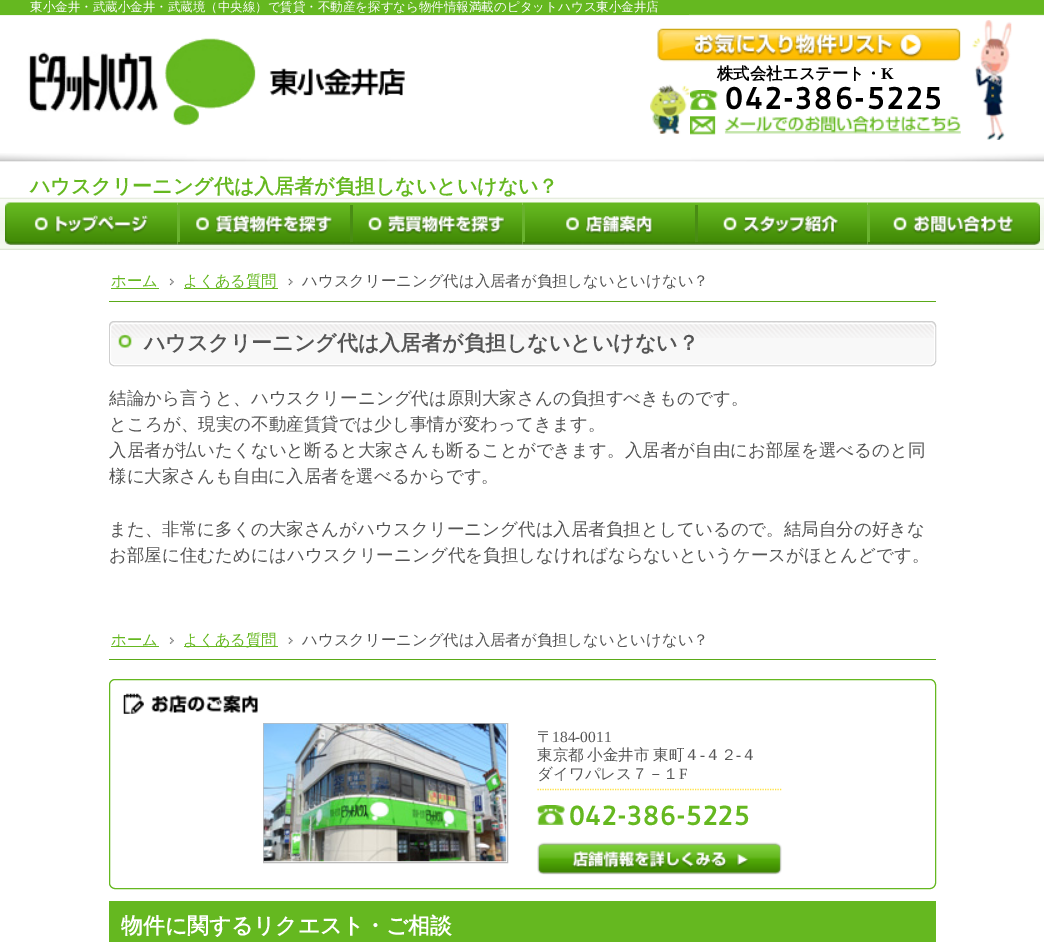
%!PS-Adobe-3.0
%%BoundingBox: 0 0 1044 942
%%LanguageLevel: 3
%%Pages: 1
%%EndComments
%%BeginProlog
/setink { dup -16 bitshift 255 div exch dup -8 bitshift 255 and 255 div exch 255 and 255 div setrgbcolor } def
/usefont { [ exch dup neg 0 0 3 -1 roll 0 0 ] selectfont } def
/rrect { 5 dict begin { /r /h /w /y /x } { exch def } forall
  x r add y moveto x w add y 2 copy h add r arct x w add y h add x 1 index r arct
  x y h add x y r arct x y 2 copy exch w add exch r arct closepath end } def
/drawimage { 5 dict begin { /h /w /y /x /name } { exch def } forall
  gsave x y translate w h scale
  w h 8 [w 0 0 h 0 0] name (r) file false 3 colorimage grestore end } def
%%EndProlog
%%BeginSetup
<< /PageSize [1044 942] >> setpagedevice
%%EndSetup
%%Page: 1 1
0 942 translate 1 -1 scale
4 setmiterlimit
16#FFFFFF setink
0 0 1044 942 rectfill
(img1.raw) 0 0 1044 16 drawimage
16#65B820 setink
0 14 689 1 rectfill
/WenQuanYiZenHei-Medium 12.5 usefont
16#FFFFFF setink
30 11 moveto (東小金井・武蔵小金井・武蔵境（中央線）で賃貸・不動産を探すなら物件情報満載のピタットハウス東小金井店) show
(img2.raw) 28 38 377 88 drawimage
(img3.raw) 0 153 1044 9 drawimage
/WenQuanYiZenHei-Bold 20 usefont
16#65B820 setink
30 193 moveto (ハウスクリーニング代は入居者が負担しないといけない？) show
(img4.raw) 972 20 40 120 drawimage
(img5.raw) 657 28 304 34 drawimage
/WenQuanYiZenHei-Bold 16.25 usefont
16#000000 setink
717 79 moveto (株式会社エステート・) show
/LiberationSerif-Bold 16.25 usefont
881 79 moveto (K) show
(img6.raw) 650 84 40 50 drawimage
(img7.raw) 690 90 28 20 drawimage
/Gudea-Bold 31.25 usefont
725 109 moveto 2.5 0 (042-386-5225) ashow
(img8.raw) 690 116 271 19 drawimage
(img9.raw) 0 197 1044 53 drawimage
(img10.raw) 5 202 173 43 drawimage
(img11.raw) 34 215 114 19 drawimage
(img12.raw) 177 202 173 43 drawimage
16#69B22E setink
177 205 3 37 rectfill
(img13.raw) 196 215 137 19 drawimage
(img14.raw) 350 202 173 43 drawimage
16#498C14 setink
350 205 3 37 rectfill
(img15.raw) 368 215 137 19 drawimage
(img16.raw) 522 202 173 43 drawimage
16#69B22E setink
522 205 3 37 rectfill
(img17.raw) 566 215 87 19 drawimage
(img18.raw) 695 202 173 43 drawimage
16#498C14 setink
695 205 3 37 rectfill
(img19.raw) 723 215 116 19 drawimage
(img20.raw) 867 202 173 43 drawimage
16#69B22E setink
867 205 3 37 rectfill
(img21.raw) 893 216 121 19 drawimage
16#5AAA18 setink
109 301 827 1 rectfill
/WenQuanYiZenHei-Medium 15.4 usefont
16#65B820 setink
111 286 moveto (ホーム) show
111 288 48 1 rectfill
(img22.raw) 169 278 5 8 drawimage
184 288 94 1 rectfill
183 286 moveto (よくある質問) show
(img23.raw) 288 278 5 8 drawimage
16#555555 setink
302 286 moveto (ハウスクリーニング代は入居者が負担しないといけない？) show
16#F8F8F8 setink
109 321 827 45 5 rrect fill
(img24.raw) 109 322 827 16 drawimage
16#CFCFCF setink
109.5 321.5 826 44 4.5 rrect stroke
(img25.raw) 118 334 14 14 drawimage
16#FFFFFF setink
110.5 323.5 824 41 4.5 rrect stroke
/WenQuanYiZenHei-Bold 21 usefont
16#555555 setink
144 350 moveto (ハウスクリーニング代は入居者が負担しないといけない？) show
/WenQuanYiZenHei-Medium 17.5 usefont
[
    [(結論から言うと、ハウスクリーニング代は原則大家さんの負担すべきものです。) 109 404]
    [(ところが、現実の不動産賃貸では少し事情が変わってきます。) 109 430]
    [(入居者が払いたくないと断ると大家さんも断ることができます。入居者が自由にお部屋を選べるのと同) 109 456]
    [(様に大家さんも自由に入居者を選べるからです。) 109 482]
    [(また、非常に多くの大家さんがハウスクリーニング代は入居者負担としているので。結局自分の好きな) 109 535]
    [(お部屋に住むためにはハウスクリーニング代を負担しなければならないというケースがほとんどです。) 109 561]
] { aload pop moveto show } forall
16#5AAA18 setink
109 659 827 1 rectfill
16#65B820 setink
111 646 48 1 rectfill
/WenQuanYiZenHei-Medium 15.4 usefont
111 645 moveto (ホーム) show
(img26.raw) 169 637 5 7 drawimage
184 646 94 1 rectfill
183 645 moveto (よくある質問) show
(img27.raw) 288 637 5 7 drawimage
16#555555 setink
302 645 moveto (ハウスクリーニング代は入居者が負担しないといけない？) show
16#65B820 setink
109.5 679.5 826 209 5.5 rrect stroke
(img28.raw) 123 693 135 21 drawimage
16#BBBBBB setink
263.5 723.5 244 139 rectstroke
(img29.raw) 263 723 244 139 drawimage
/WenQuanYiZenHei-Medium 15.5 usefont
16#555555 setink
537 742 moveto (〒) show
/LiberationSerif-Regular 15.5 usefont
552 742 moveto (184-0011) show
/WenQuanYiZenHei-Medium 15.5 usefont
[
    [(東京都) 537 760]
    [(小金井市) 587 760]
    [(東町４) 653 760]
] { aload pop moveto show } forall
/LiberationSerif-Regular 15.5 usefont
700 760 moveto (-) show
/WenQuanYiZenHei-Medium 15.5 usefont
705 760 moveto (４２) show
/LiberationSerif-Regular 15.5 usefont
736 760 moveto (-) show
/WenQuanYiZenHei-Medium 15.5 usefont
741 760 moveto (４) show
537 779 moveto (ダイワパレス７－１) show
/LiberationSerif-Regular 15.5 usefont
679 779 moveto (F) show
16#FFE242 setink
1.2 setlinewidth
[1.25 1.25] 0 setdash
537.5 789.5 moveto 782.5 789.5 lineto stroke
(img30.raw) 537 805 28 20 drawimage
/Gudea-Bold 27.5 usefont
16#65B820 setink
569 825 moveto 1.25 0 (042-386-5225) ashow
(img31.raw) 537 842 245 33 drawimage
109 901 827 41 rectfill
/WenQuanYiZenHei-Bold 21.75 usefont
16#FFFFFF setink
121 933 moveto (物件に関するリクエスト・ご相談) show
showpage
%%EOF
